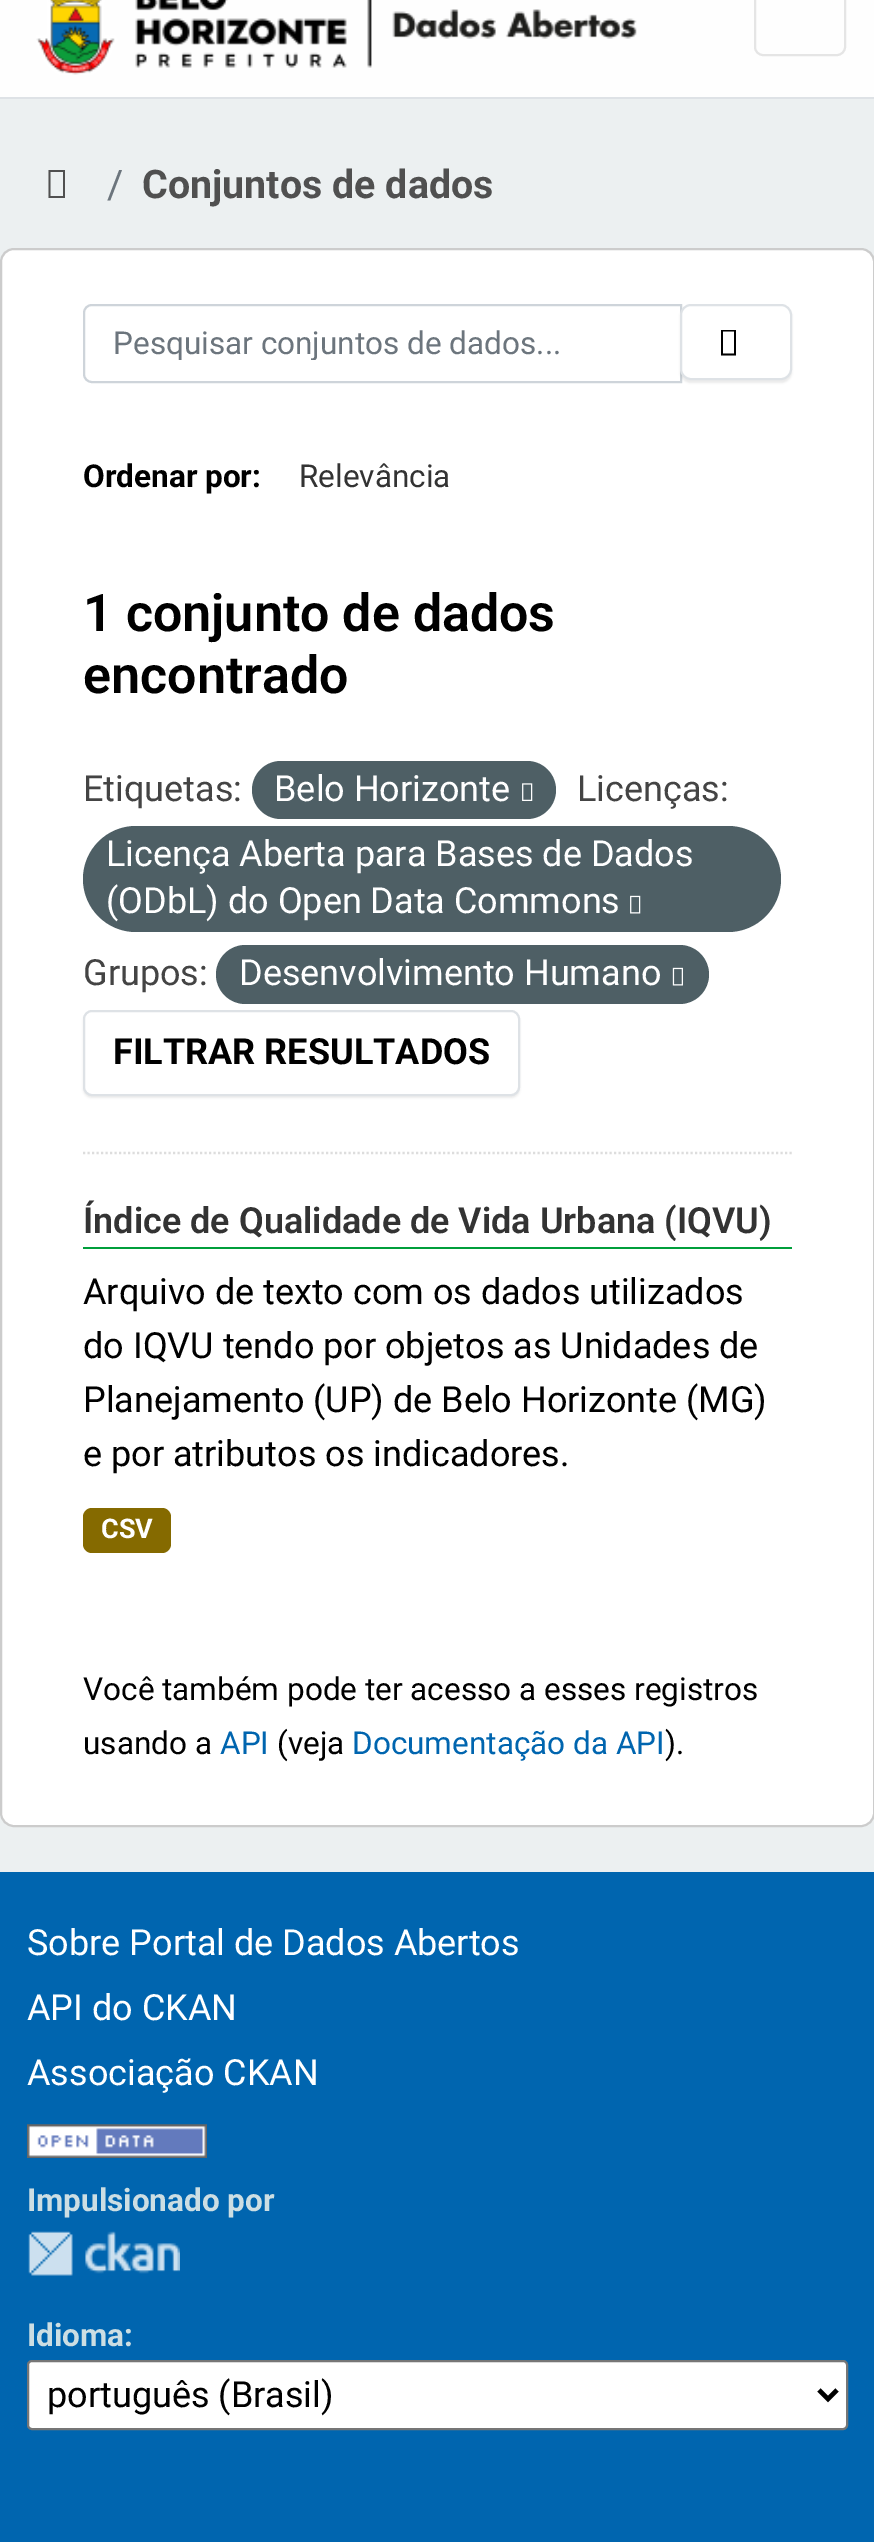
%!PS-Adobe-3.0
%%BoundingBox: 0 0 874 2542
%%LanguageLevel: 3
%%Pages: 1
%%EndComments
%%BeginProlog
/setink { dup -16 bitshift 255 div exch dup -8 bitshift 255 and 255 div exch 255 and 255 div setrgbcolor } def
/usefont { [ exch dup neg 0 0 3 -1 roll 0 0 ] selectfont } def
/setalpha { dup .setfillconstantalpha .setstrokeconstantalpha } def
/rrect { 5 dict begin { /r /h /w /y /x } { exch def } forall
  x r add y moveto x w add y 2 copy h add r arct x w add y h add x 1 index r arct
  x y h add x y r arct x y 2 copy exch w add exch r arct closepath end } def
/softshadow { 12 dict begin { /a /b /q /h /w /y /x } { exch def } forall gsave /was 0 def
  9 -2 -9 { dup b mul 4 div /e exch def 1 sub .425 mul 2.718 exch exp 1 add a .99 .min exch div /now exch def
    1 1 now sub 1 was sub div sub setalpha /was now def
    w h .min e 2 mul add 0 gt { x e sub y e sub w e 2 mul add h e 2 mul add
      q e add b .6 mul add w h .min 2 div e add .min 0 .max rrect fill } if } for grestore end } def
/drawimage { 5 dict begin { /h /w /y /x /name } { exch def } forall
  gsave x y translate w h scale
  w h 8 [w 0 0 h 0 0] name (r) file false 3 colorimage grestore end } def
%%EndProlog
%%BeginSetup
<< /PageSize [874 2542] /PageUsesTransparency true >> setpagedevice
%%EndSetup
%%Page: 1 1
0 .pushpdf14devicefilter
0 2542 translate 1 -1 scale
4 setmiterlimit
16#ECF0F1 setink
0 0 874 2542 rectfill
16#FEFEFE setink
0 0 874 97 rectfill
16#DEE2E6 setink
0 97 874 2 rectfill
(img1.raw) 36 0 601 75 drawimage
16#E5E5E5 setink
2 setlinewidth
755 -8 90 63 8 rrect stroke
16#505050 setink
48.5 198 moveto 48.5 170 lineto 65 170 lineto 65 198 lineto closepath 50.5 196 moveto 63 196 lineto 63 172 lineto 50.5 172 lineto closepath fill
/Roboto-Regular 39.4 usefont
16#6C757D setink
107 198 moveto (/) show
/Roboto-Bold 39.4 usefont
16#505050 setink
142 198 moveto (Conjuntos de dados) show
16#FFFFFF setink
1 249 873 1577 13 rrect gsave fill grestore
16#CCCCCC setink
stroke
16#DDDDDD setink
2.2 setlinewidth
[2.25 2.25] 0 setdash
83 1153 moveto 792 1153 lineto stroke
16#CED4DA setink
2 setlinewidth
[] 0 setdash
92 305 moveto 681 305 lineto 681 382 lineto 92 382 lineto 87.5 382 84 378.5 84 374 curveto 84 313 lineto 84 308.5 87.5 305 92 305 curveto closepath stroke
gsave
113 324 540 36 rectclip
/Roboto-Regular 31.5 usefont
16#6C757D setink
113 354 moveto (Pesquisar conjuntos de dados...) show
grestore
16#000000 setink
680 306 112 77 11 1 0.07 softshadow
16#FFFFFF setink
681 305 110 74 10 rrect gsave fill grestore
16#DEE2E6 setink
stroke
16#000000 setink
721 355.5 moveto 721 330 lineto 736 330 lineto 736 355.5 lineto closepath 723 353.5 moveto 734 353.5 lineto 734 331.5 lineto 723 331.5 lineto closepath fill
/Roboto-Bold 31.5 usefont
83 487 moveto (Ordenar por:) show
/Roboto-Regular 31.5 usefont
16#333333 setink
299 487 moveto (Relevância) show
/Roboto-SemiBold 52 usefont
16#000000 setink
83 631 moveto (1 conjunto de dados) show
83 693 moveto (encontrado) show
/Roboto-Regular 36 usefont
16#444444 setink
83 801 moveto (Etiquetas:) show
16#4E5F65 setink
252 761 304 58 29 rrect fill
16#FFFFFF setink
274 801 moveto (Belo Horizonte) show
(img2.raw) 522 783 11 18 drawimage
16#444444 setink
577 801 moveto (Licenças:) show
16#4E5F65 setink
83 826 698 106 53 rrect fill
16#FFFFFF setink
106 866 moveto (Licença Aberta para Bases de Dados) show
106 913 moveto (\(ODbL\) do Open Data Commons) show
(img3.raw) 630 895 11 19 drawimage
16#444444 setink
83 985 moveto (Grupos:) show
16#4E5F65 setink
216 945 493 59 29.5 rrect fill
16#FFFFFF setink
239 985 moveto (Desenvolvimento Humano) show
(img4.raw) 672 967 11 19 drawimage
16#000000 setink
83 1013 437 85 9 1 0.07 softshadow
16#FFFFFF setink
84 1011 435 84 8 rrect gsave fill grestore
16#DEE2E6 setink
stroke
/Roboto-Bold 36 usefont
16#000000 setink
113 1064 moveto (FILTRAR RESULTADOS) show
16#009E3B setink
83 1247 709 2 rectfill
/Roboto-SemiBold 36 usefont
16#333333 setink
83 1233 moveto (Índice de Qualidade de Vida Urbana \(IQVU\)) show
/Roboto-Regular 36 usefont
16#000000 setink
[
    [(Arquivo de texto com os dados utilizados) 83 1304]
    [(do IQVU tendo por objetos as Unidades de) 83 1358]
    [(Planejamento \(UP\) de Belo Horizonte \(MG\)) 83 1412]
    [(e por atributos os indicadores.) 83 1466]
] { aload pop moveto show } forall
16#856A00 setink
83 1508 88 45 9 rrect fill
/Roboto-Bold 27 usefont
16#FFFFFF setink
101 1538 moveto (CSV) show
/Roboto-Regular 31.5 usefont
16#000000 setink
83 1700 moveto (Você também pode ter acesso a esses registros) show
83 1754 moveto (usando a) show
16#0065AF setink
220 1754 moveto (API) show
16#000000 setink
277 1754 moveto (\(veja) show
16#0065AF setink
352 1754 moveto (Documentação da API) show
16#000000 setink
665 1754 moveto (\).) show
16#0065AF setink
0 1872 874 670 rectfill
/Roboto-Regular 36 usefont
16#FFFFFF setink
[
    [(Sobre Portal de Dados Abertos) 27 1955]
    [(API do CKAN) 27 2020]
    [(Associação CKAN) 27 2085]
] { aload pop moveto show } forall
(img5.raw) 27 2124 180 34 drawimage
/Roboto-Bold 31.5 usefont
16#CCDEE3 setink
27 2211 moveto (Impulsionado por) show
(img6.raw) 28 2231 152 45 drawimage
27 2346 moveto (Idioma:) show
16#FFFFFF setink
28 2361 819 68 4 rrect gsave fill grestore
16#767676 setink
stroke
16#000000 setink
4.5 setlinewidth
819 2390 moveto 828 2399 lineto 837 2390 lineto stroke
/Roboto-Regular 36 usefont
47 2407 moveto (português \(Brasil\)) show
.poppdf14devicefilter showpage
%%EOF
